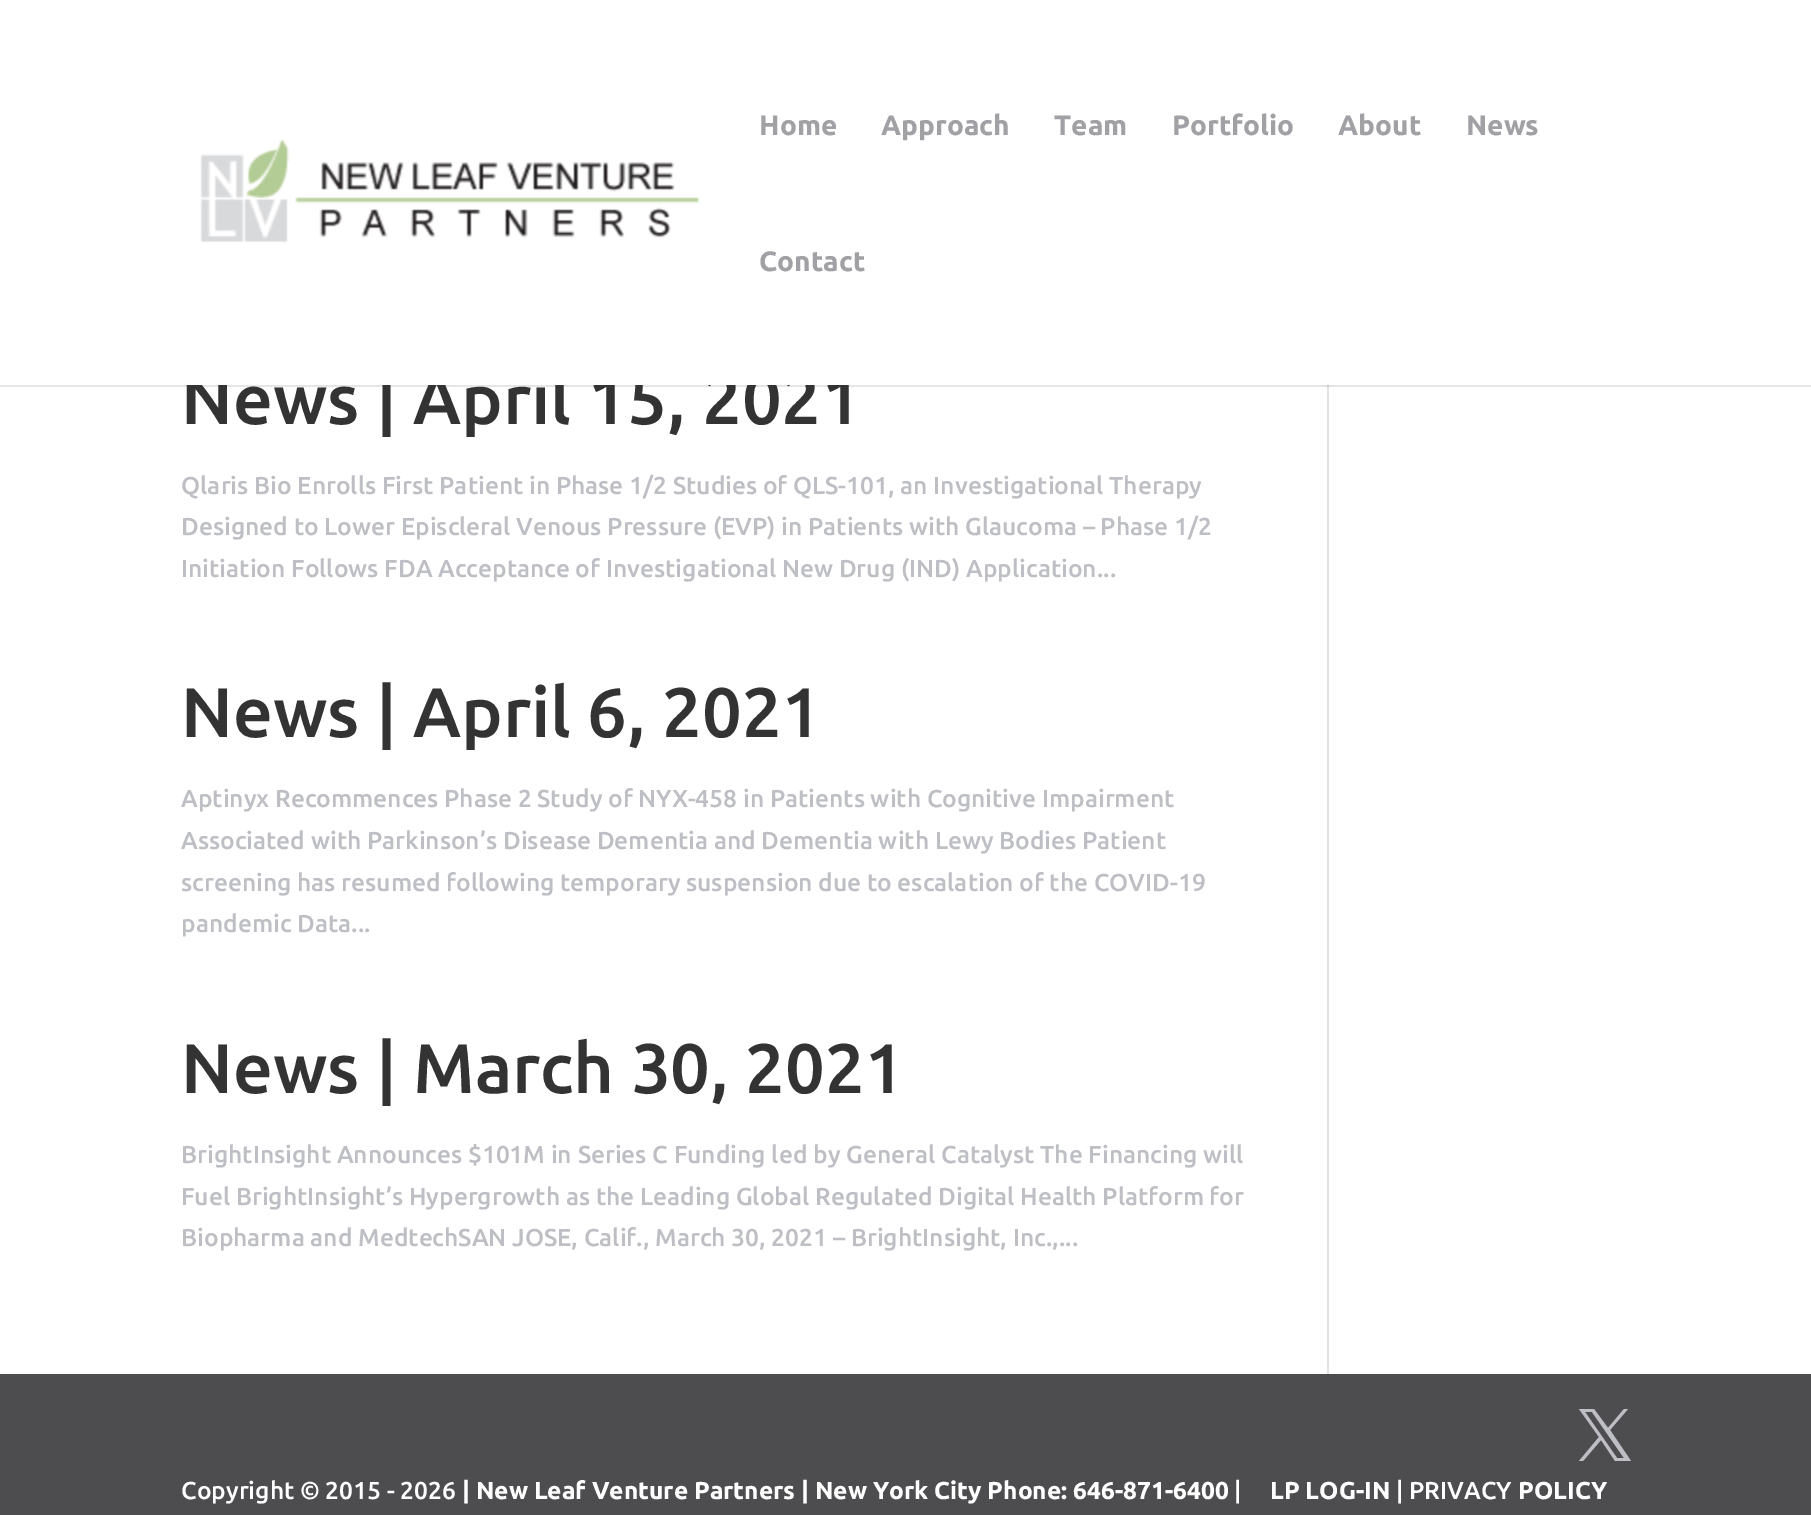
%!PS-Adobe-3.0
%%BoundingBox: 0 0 1811 1515
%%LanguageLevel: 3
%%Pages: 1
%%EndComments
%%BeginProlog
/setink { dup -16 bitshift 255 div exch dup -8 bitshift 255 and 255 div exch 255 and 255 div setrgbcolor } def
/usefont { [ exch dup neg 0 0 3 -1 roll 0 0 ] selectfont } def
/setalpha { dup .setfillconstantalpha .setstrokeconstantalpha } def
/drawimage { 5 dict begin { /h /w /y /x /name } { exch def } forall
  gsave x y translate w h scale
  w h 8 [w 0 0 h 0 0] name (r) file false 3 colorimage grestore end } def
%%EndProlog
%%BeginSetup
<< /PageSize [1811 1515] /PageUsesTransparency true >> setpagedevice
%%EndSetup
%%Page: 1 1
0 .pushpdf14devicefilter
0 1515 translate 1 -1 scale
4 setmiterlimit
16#FFFFFF setink
0 0 1811 1515 rectfill
16#E2E2E2 setink
1327 385 2 989 rectfill
0.1 setalpha
16#000000 setink
0 385 1811 2 rectfill
/Ubuntu-Medium 70 usefont
1 setalpha
16#333333 setink
181 424 moveto (News | April 15, 2021) show
16#FFFFFF setink
186 369 663 16 rectfill
(img1.raw) 200 139 500 104 drawimage
/Ubuntu-Bold 28 usefont
16#A1A0A4 setink
[
    [(Home) 759 135]
    [(Approach) 881 135]
    [(Team) 1054 135]
    [(Portfolio) 1172 135]
    [(About) 1338 135]
    [(News) 1466 135]
    [(Contact) 759 271]
] { aload pop moveto show } forall
/Ubuntu-Medium 24.5 usefont
16#BEBFC4 setink
[
    [(Qlaris Bio Enrolls First Patient in Phase 1/2 Studies of QLS-101, an Investigational Therapy) 181 494]
    [(Designed to Lower Episcleral Venous Pressure \(EVP\) in Patients with Glaucoma – Phase 1/2) 181 535]
    [(Initiation Follows FDA Acceptance of Investigational New Drug \(IND\) Application...) 181 577]
] { aload pop moveto show } forall
/Ubuntu-Medium 70 usefont
16#333333 setink
181 737 moveto (News | April 6, 2021) show
/Ubuntu-Medium 24.5 usefont
16#BEBFC4 setink
[
    [(Aptinyx Recommences Phase 2 Study of NYX-458 in Patients with Cognitive Impairment) 181 807]
    [(Associated with Parkinson’s Disease Dementia and Dementia with Lewy Bodies Patient) 181 849]
    [(screening has resumed following temporary suspension due to escalation of the COVID-19) 181 891]
    [(pandemic Data...) 181 932]
] { aload pop moveto show } forall
/Ubuntu-Medium 70 usefont
16#333333 setink
181 1093 moveto (News | March 30, 2021) show
/Ubuntu-Medium 24.5 usefont
16#BEBFC4 setink
[
    [(BrightInsight Announces $101M in Series C Funding led by General Catalyst The Financing will) 181 1163]
    [(Fuel BrightInsight’s Hypergrowth as the Leading Global Regulated Digital Health Platform for) 181 1205]
    [(Biopharma and MedtechSAN JOSE, Calif., March 30, 2021 – BrightInsight, Inc.,...) 181 1246]
] { aload pop moveto show } forall
16#4D4C4F setink
0 1374 1811 141 rectfill
16#BEBFC4 setink
1579 1409 moveto 1599 1437 lineto 1579 1461 lineto 1583 1461 lineto 1601 1440 lineto 1615 1461 lineto 1631 1461 lineto 1610 1430 lineto 1628 1409 lineto 1624 1409 lineto 1608 1428 lineto 1594 1409 lineto closepath 1585 1412 moveto 1592 1412 lineto 1624 1458 lineto 1617 1458 lineto closepath fill
16#FFFFFF setink
181 1499 moveto (Copyright © 2015 - 2026) show
/Ubuntu-Bold 24.5 usefont
462 1499 moveto (| New Leaf Venture Partners | New York City Phone: 646-871-6400) show
/Ubuntu-Medium 24.5 usefont
1234 1499 moveto (|) show
/Ubuntu-Bold 24.5 usefont
1270 1499 moveto (LP LOG-IN) show
/Ubuntu-Medium 24.5 usefont
1396 1499 moveto (| PRIVACY) show
/Ubuntu-Bold 24.5 usefont
1518 1499 moveto (POLICY) show
.poppdf14devicefilter showpage
%%EOF
